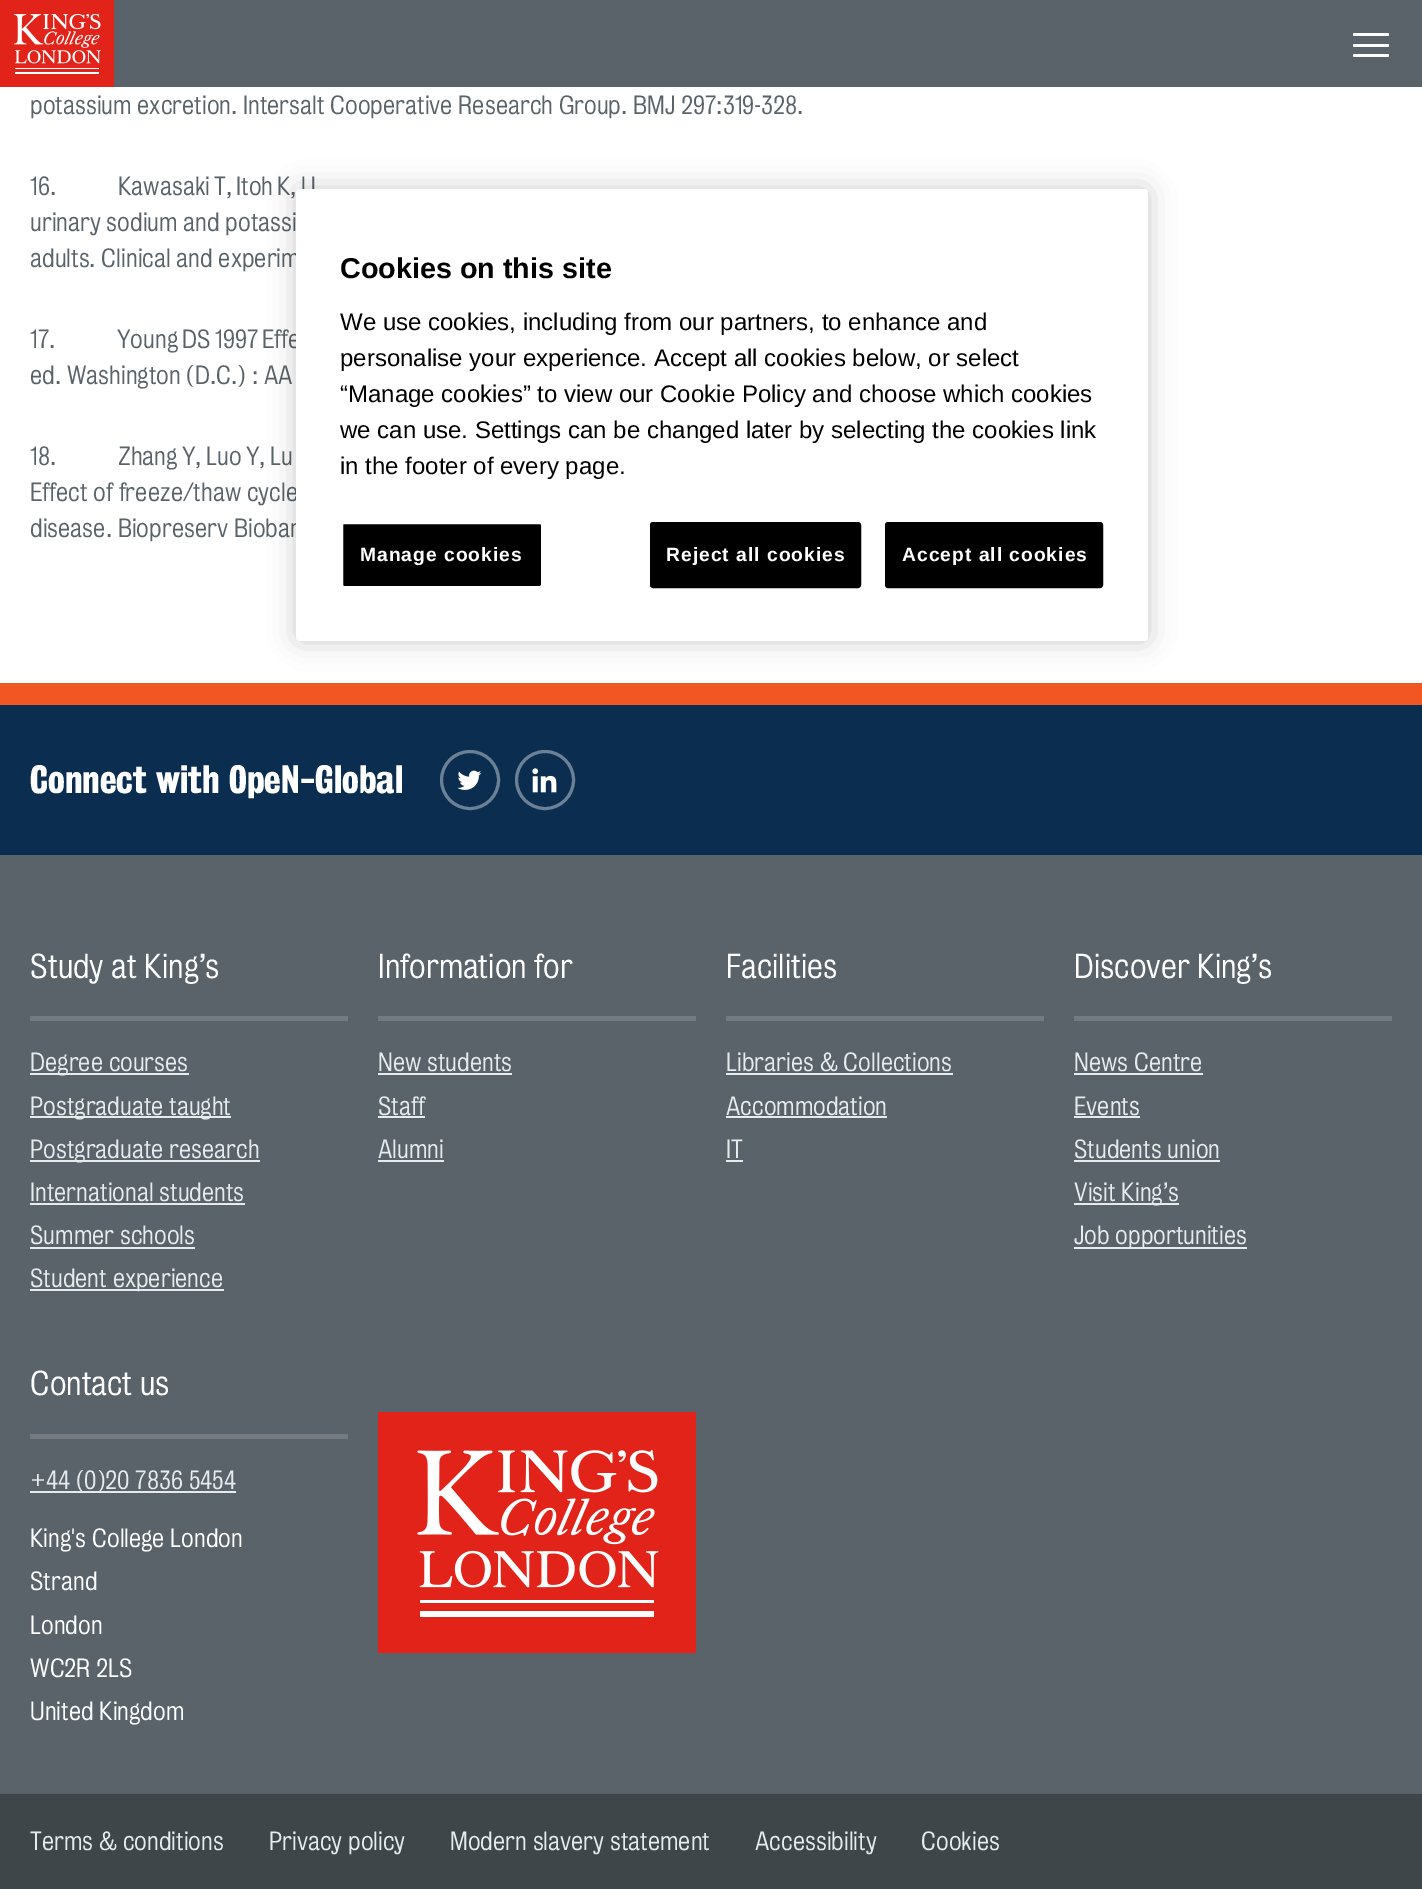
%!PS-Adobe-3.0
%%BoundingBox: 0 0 1422 1889
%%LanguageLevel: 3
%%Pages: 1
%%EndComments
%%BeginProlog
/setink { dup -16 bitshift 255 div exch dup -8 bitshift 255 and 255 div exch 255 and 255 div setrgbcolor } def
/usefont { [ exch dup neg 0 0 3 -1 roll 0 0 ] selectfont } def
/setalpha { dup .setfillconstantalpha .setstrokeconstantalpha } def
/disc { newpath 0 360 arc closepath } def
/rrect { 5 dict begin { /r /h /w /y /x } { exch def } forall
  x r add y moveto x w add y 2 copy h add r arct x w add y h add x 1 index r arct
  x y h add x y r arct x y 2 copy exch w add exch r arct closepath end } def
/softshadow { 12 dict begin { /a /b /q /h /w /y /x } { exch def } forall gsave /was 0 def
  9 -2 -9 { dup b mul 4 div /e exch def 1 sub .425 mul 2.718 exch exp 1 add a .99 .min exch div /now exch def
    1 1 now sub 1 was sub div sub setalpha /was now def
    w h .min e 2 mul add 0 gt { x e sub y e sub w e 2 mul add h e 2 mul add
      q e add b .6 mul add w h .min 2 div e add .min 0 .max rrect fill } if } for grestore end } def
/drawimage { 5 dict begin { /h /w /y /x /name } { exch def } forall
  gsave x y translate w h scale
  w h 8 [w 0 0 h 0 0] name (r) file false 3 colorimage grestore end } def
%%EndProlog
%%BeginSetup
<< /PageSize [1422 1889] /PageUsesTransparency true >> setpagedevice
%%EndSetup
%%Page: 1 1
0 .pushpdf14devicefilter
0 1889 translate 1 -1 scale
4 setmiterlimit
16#FFFFFF setink
0 0 1422 1889 rectfill
16#5A6369 setink
114 0 1308 87 rectfill
(img1.raw) 0 0 114 87 drawimage
16#FFFFFF setink
1353 33 36 3 1.5 rrect fill
1353 44 36 3 1.5 rrect fill
1353 54 36 3 1.5 rrect fill
/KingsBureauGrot-Light 24 usefont
16#5A6369 setink
[
    [(potassium excretion. Intersalt Cooperative Research Group. BMJ 297:319-328.) 30 114]
    [(16.) 30 195]
    [(Kawasaki) 118 195]
    [(T,) 214 195]
    [(Itoh) 236 195]
    [(K,) 277 195]
    [(U) 301 195]
    [(urinary sodium and potassi) 30 231]
    [(adults. Clinical and experim) 30 267]
    [(17.) 30 348]
    [(Young) 117 348]
    [(DS) 182 348]
    [(1997) 215 348]
    [(Effect) 262 348]
    [(ed. Washington \(D.C.\) : AA) 30 384]
    [(18.) 30 465]
    [(Zhang) 118 465]
    [(Y,) 182 465]
    [(Luo) 206 465]
    [(Y,) 246 465]
    [(Lu) 270 465]
    [(H,) 297 465]
    [(Effect of freeze/thaw cycle) 30 501]
    [(disease. Biopreserv Bioban) 30 537]
] { aload pop moveto show } forall
16#0A2D50 setink
0 705 1422 150 rectfill
16#F15623 setink
0 683 1422 22 rectfill
/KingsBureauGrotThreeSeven-Bold 36 usefont
16#FFFFFF setink
30 793 moveto (Connect with OpeN-Global) show
16#6C8196 setink
3 setlinewidth
470 780 28.5 disc stroke
(img2.raw) 457 770 25 20 drawimage
545 780 28.5 disc stroke
(img3.raw) 532 768 25 25 drawimage
16#5A6369 setink
0 855 1422 939 rectfill
16#737B80 setink
30 1016 318 5 rectfill
/KingsBureauGrot-Light 31.5 usefont
16#FFFFFF setink
30 978 moveto (Study at King’s) show
16#E6EBED setink
30 1073 159 2 rectfill
/KingsBureauGrot-Light 24 usefont
30 1071 moveto (Degree courses) show
30 1116 201 2 rectfill
30 1115 moveto (Postgraduate taught) show
30 1160 230 2 rectfill
30 1158 moveto (Postgraduate research) show
30 1201 moveto (International students) show
30 1203 215 2 rectfill
30 1244 moveto (Summer schools) show
30 1247 165 2 rectfill
30 1289 194 2 rectfill
30 1287 moveto (Student experience) show
16#737B80 setink
378 1016 318 5 rectfill
/KingsBureauGrot-Light 31.5 usefont
16#FFFFFF setink
378 978 moveto (Information for) show
/KingsBureauGrot-Light 24 usefont
16#E6EBED setink
378 1071 moveto (New students) show
378 1073 134 2 rectfill
378 1115 moveto (Staff) show
378 1116 47 2 rectfill
378 1158 moveto (Alumni) show
378 1160 66 2 rectfill
16#737B80 setink
726 1016 318 5 rectfill
/KingsBureauGrot-Light 31.5 usefont
16#FFFFFF setink
726 978 moveto (Facilities) show
/KingsBureauGrot-Light 24 usefont
16#E6EBED setink
726 1071 moveto (Libraries & Collections) show
726 1073 227 2 rectfill
726 1115 moveto (Accommodation) show
726 1116 161 2 rectfill
726 1158 moveto (IT) show
726 1160 17 2 rectfill
16#737B80 setink
1074 1016 318 5 rectfill
/KingsBureauGrot-Light 31.5 usefont
16#FFFFFF setink
1074 978 moveto (Discover King’s) show
/KingsBureauGrot-Light 24 usefont
16#E6EBED setink
1074 1071 moveto (News Centre) show
1074 1073 129 2 rectfill
1074 1115 moveto (Events) show
1074 1116 66 2 rectfill
1074 1158 moveto (Students union) show
1074 1160 146 2 rectfill
1074 1203 105 2 rectfill
1074 1201 moveto (Visit King’s) show
1074 1247 173 2 rectfill
1074 1244 moveto (Job opportunities) show
16#737B80 setink
30 1434 318 5 rectfill
/KingsBureauGrot-Light 31.5 usefont
16#FFFFFF setink
30 1395 moveto (Contact us) show
16#E6EBED setink
30 1491 206 2 rectfill
/KingsBureauGrot-Light 24 usefont
30 1489 moveto (+44 \(0\)20 7836 5454) show
16#FFFFFF setink
[
    [(King's College London) 30 1547]
    [(Strand) 30 1590]
    [(London) 30 1634]
    [(WC2R 2LS) 30 1677]
    [(United Kingdom) 30 1720]
] { aload pop moveto show } forall
(img4.raw) 378 1412 318 241 drawimage
16#3E4649 setink
0 1794 1422 95 rectfill
16#E6EBED setink
[
    [(Terms & conditions) 30 1850]
    [(Privacy policy) 269 1850]
    [(Modern slavery statement) 450 1850]
    [(Accessibility) 755 1850]
    [(Cookies) 921 1850]
] { aload pop moveto show } forall
16#000000 setink
296 189 852 452 4 13.5 0.2 softshadow
16#FFFFFF setink
296 189 852 452 4 rrect fill
/LiberationSans-Bold 28.75 usefont
16#000000 setink
340 278 moveto (Cookies on this site) show
/LiberationSans-Regular 24 usefont
[
    [(We use cookies, including from our partners, to enhance and) 340 330]
    [(personalise your experience. Accept all cookies below, or select) 340 366]
    [(“Manage cookies” to view our Cookie Policy and choose which cookies) 340 402]
    [(we can use. Settings can be changed later by selecting the cookies link) 340 438]
    [(in the footer of every page.) 340 474]
] { aload pop moveto show } forall
342 523 200 64 2 rrect gsave fill grestore
16#FFFFFF setink
2 setlinewidth
stroke
/LiberationSans-Bold 19.25 usefont
360 561 moveto 1 0 (Manage cookies) ashow
16#000000 setink
651 523 209 64 2 rrect gsave fill grestore
stroke
16#FFFFFF setink
666 561 moveto 1 0 (Reject all cookies) ashow
16#000000 setink
886 523 216 64 2 rrect gsave fill grestore
stroke
16#FFFFFF setink
902 561 moveto 1 0 (Accept all cookies) ashow
.poppdf14devicefilter showpage
%%EOF
